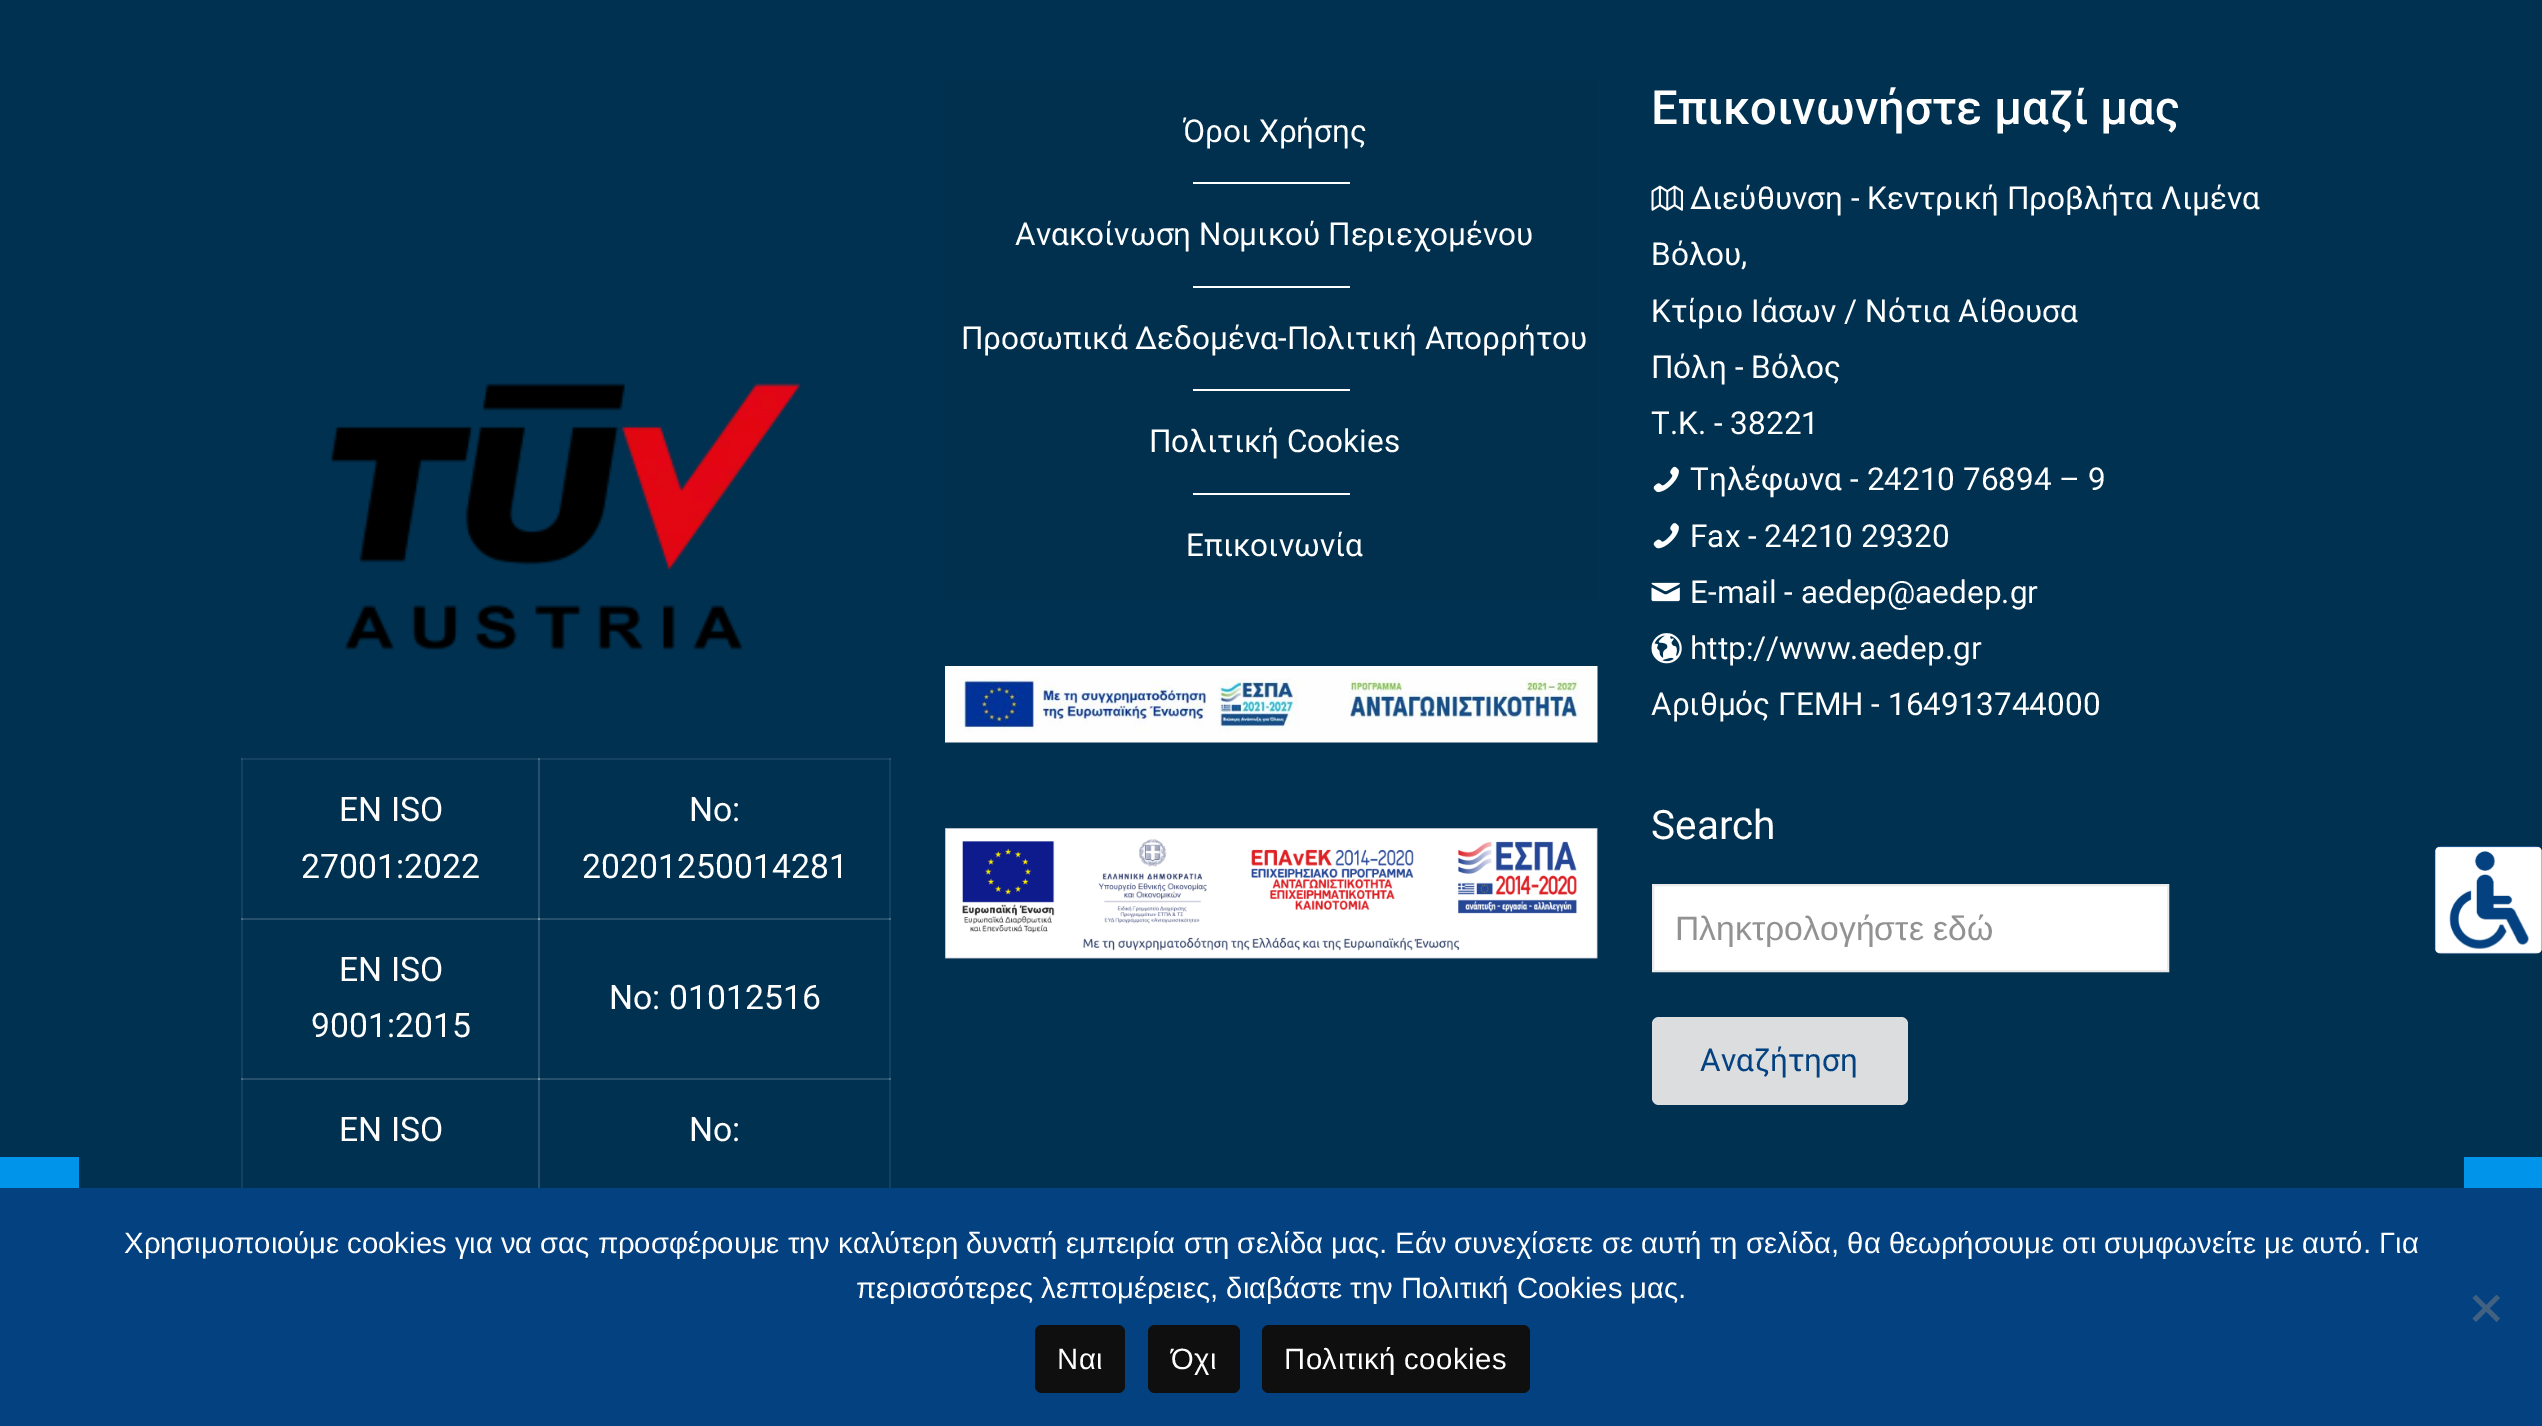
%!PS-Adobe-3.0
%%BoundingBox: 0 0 2542 1426
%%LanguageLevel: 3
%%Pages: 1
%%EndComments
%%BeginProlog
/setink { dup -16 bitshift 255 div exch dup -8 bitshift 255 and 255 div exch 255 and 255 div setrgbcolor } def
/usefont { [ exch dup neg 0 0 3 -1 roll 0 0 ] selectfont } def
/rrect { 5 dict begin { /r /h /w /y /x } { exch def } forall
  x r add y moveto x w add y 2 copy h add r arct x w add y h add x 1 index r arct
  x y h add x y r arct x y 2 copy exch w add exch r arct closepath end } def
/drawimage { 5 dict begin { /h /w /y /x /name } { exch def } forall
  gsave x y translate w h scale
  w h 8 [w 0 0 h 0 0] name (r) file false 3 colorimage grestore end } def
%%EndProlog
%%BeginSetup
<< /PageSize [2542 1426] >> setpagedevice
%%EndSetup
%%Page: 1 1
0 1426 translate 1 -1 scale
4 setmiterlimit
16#003151 setink
0 0 2542 1426 rectfill
[
    [241 758 2 430 16#14415F]
    [241 758 299 2 16#14415F]
    [241 758 2 2 16#27506C]
    [538 758 2 162 16#27506C]
    [889 758 2 430 16#14415F]
    [241 918 299 2 16#27506C]
    [241 918 2 2 16#486B83]
    [538 918 2 162 16#27506C]
    [241 1078 299 2 16#27506C]
    [241 1078 2 2 16#486B83]
    [538 1078 2 110 16#27506C]
    [945 81 653 518 16#00304E]
] { aload pop setink rectfill } forall
/Roboto-Regular 31.5 usefont
16#FFFFFF setink
1183 142 moveto (Όροι Χρήσης) show
1193 182 157 2 rectfill
1015 245 moveto (Aνακοίνωση Νομικού Περιεχομένου) show
1193 286 157 2 rectfill
961 349 moveto (Προσωπικά Δεδομένα-Πολιτική Απορρήτου) show
1193 389 157 2 rectfill
1149 452 moveto (Πολιτική Cookies) show
1193 493 157 2 rectfill
1186 556 moveto (Επικοινωνία) show
(img1.raw) 945 666 653 77 drawimage
(img2.raw) 945 828 653 131 drawimage
/Roboto-Medium 47.25 usefont
1651 124 moveto (Επικοινωνήστε μαζί μας) show
(img3.raw) 1651 185 32 26 drawimage
/Roboto-Regular 31.5 usefont
[
    [(Διεύθυνση - Κεντρική Προβλήτα Λιμένα) 1690 209]
    [(Βόλου,) 1651 265]
    [(Κτίριο Ιάσων / Νότια Αίθουσα) 1651 322]
    [(Πόλη - Βόλος) 1651 378]
    [(Τ.Κ. - 38221) 1651 434]
] { aload pop moveto show } forall
(img4.raw) 1653 466 26 27 drawimage
1690 490 moveto (Τηλέφωνα - 24210 76894 – 9) show
(img5.raw) 1653 523 26 26 drawimage
1690 547 moveto (Fax - 24210 29320) show
(img6.raw) 1651 582 29 20 drawimage
1690 603 moveto (E-mail - aedep@aedep.gr) show
(img7.raw) 1651 633 31 31 drawimage
1690 659 moveto (http://www.aedep.gr) show
1651 715 moveto (Αριθμός ΓΕΜΗ - 164913744000) show
/Roboto-Regular 40.5 usefont
1651 839 moveto (Search) show
1653 885 moveto 2168 885 lineto 2168 971 lineto 1653 971 lineto closepath gsave fill grestore
16#EBEBEB setink
2 setlinewidth
stroke
/LiberationSans-Regular 33.75 usefont
16#929292 setink
1675 940 moveto (Πληκτρολογήστε εδώ) show
16#DBDDDF setink
1652 1017 256 88 7 rrect fill
/Roboto-Regular 31.5 usefont
16#034181 setink
1700 1071 moveto (Αναζήτηση) show
(img8.raw) 331 383 470 267 drawimage
/Roboto-Regular 33.75 usefont
16#FFFFFF setink
339 821 moveto (EN ISO) show
301 878 moveto (27001:2022) show
[
    [538 758 353 2 16#14415F]
    [538 758 2 2 16#486B83]
    [889 758 2 2 16#27506C]
] { aload pop setink rectfill } forall
16#FFFFFF setink
[
    [(No:) 689 821]
    [(20201250014281) 582 878]
    [(EN ISO) 339 981]
    [(9001:2015) 311 1037]
] { aload pop moveto show } forall
[
    [538 918 353 2 16#27506C]
    [538 918 2 2 16#7B95A6]
    [889 918 2 2 16#486B83]
] { aload pop setink rectfill } forall
16#FFFFFF setink
609 1009 moveto (No: 01012516) show
339 1141 moveto (EN ISO) show
[
    [538 1078 353 2 16#27506C]
    [538 1078 2 2 16#7B95A6]
    [889 1078 2 2 16#486B83]
] { aload pop setink rectfill } forall
16#FFFFFF setink
689 1141 moveto (No:) show
16#232323 setink
2435 846 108 108 7 rrect fill
(img9.raw) 2434 846 108 108 drawimage
[
    [0 1157 79 31 16#0095EB]
    [2464 1157 78 31 16#0095EB]
    [0 1188 2542 238 16#034181]
] { aload pop setink rectfill } forall
/LiberationSans-Regular 29.25 usefont
16#FFFFFF setink
124 1253 moveto (Χρησιμοποιούμε cookies για να σας προσφέρουμε την καλύτερη δυνατή εμπειρία στη σελίδα μας. Εάν συνεχίσετε σε αυτή τη σελίδα, θα θεωρήσουμε οτι συμφωνείτε με αυτό. Για) show
856 1298 moveto (περισσότερες λεπτομέρειες, διαβάστε την Πολιτική Cookies μας.) show
16#426181 setink
2496.5 1295 moveto 2500 1298 lineto 2476 1322 lineto 2472.5 1318.5 lineto closepath fill
2472.5 1298 moveto 2476 1295 lineto 2500 1318.5 lineto 2496.5 1322 lineto closepath fill
16#0F0F0F setink
1035 1325 90 68 7 rrect fill
16#FFFFFF setink
1057 1369 moveto 0.5 0 (Ναι) ashow
16#0F0F0F setink
1148 1325 92 68 7 rrect fill
16#FFFFFF setink
1171 1369 moveto 0.5 0 (Όχι) ashow
16#0F0F0F setink
1262 1325 268 68 7 rrect fill
16#FFFFFF setink
1284 1369 moveto 0.5 0 (Πολιτική cookies) ashow
showpage
%%EOF
